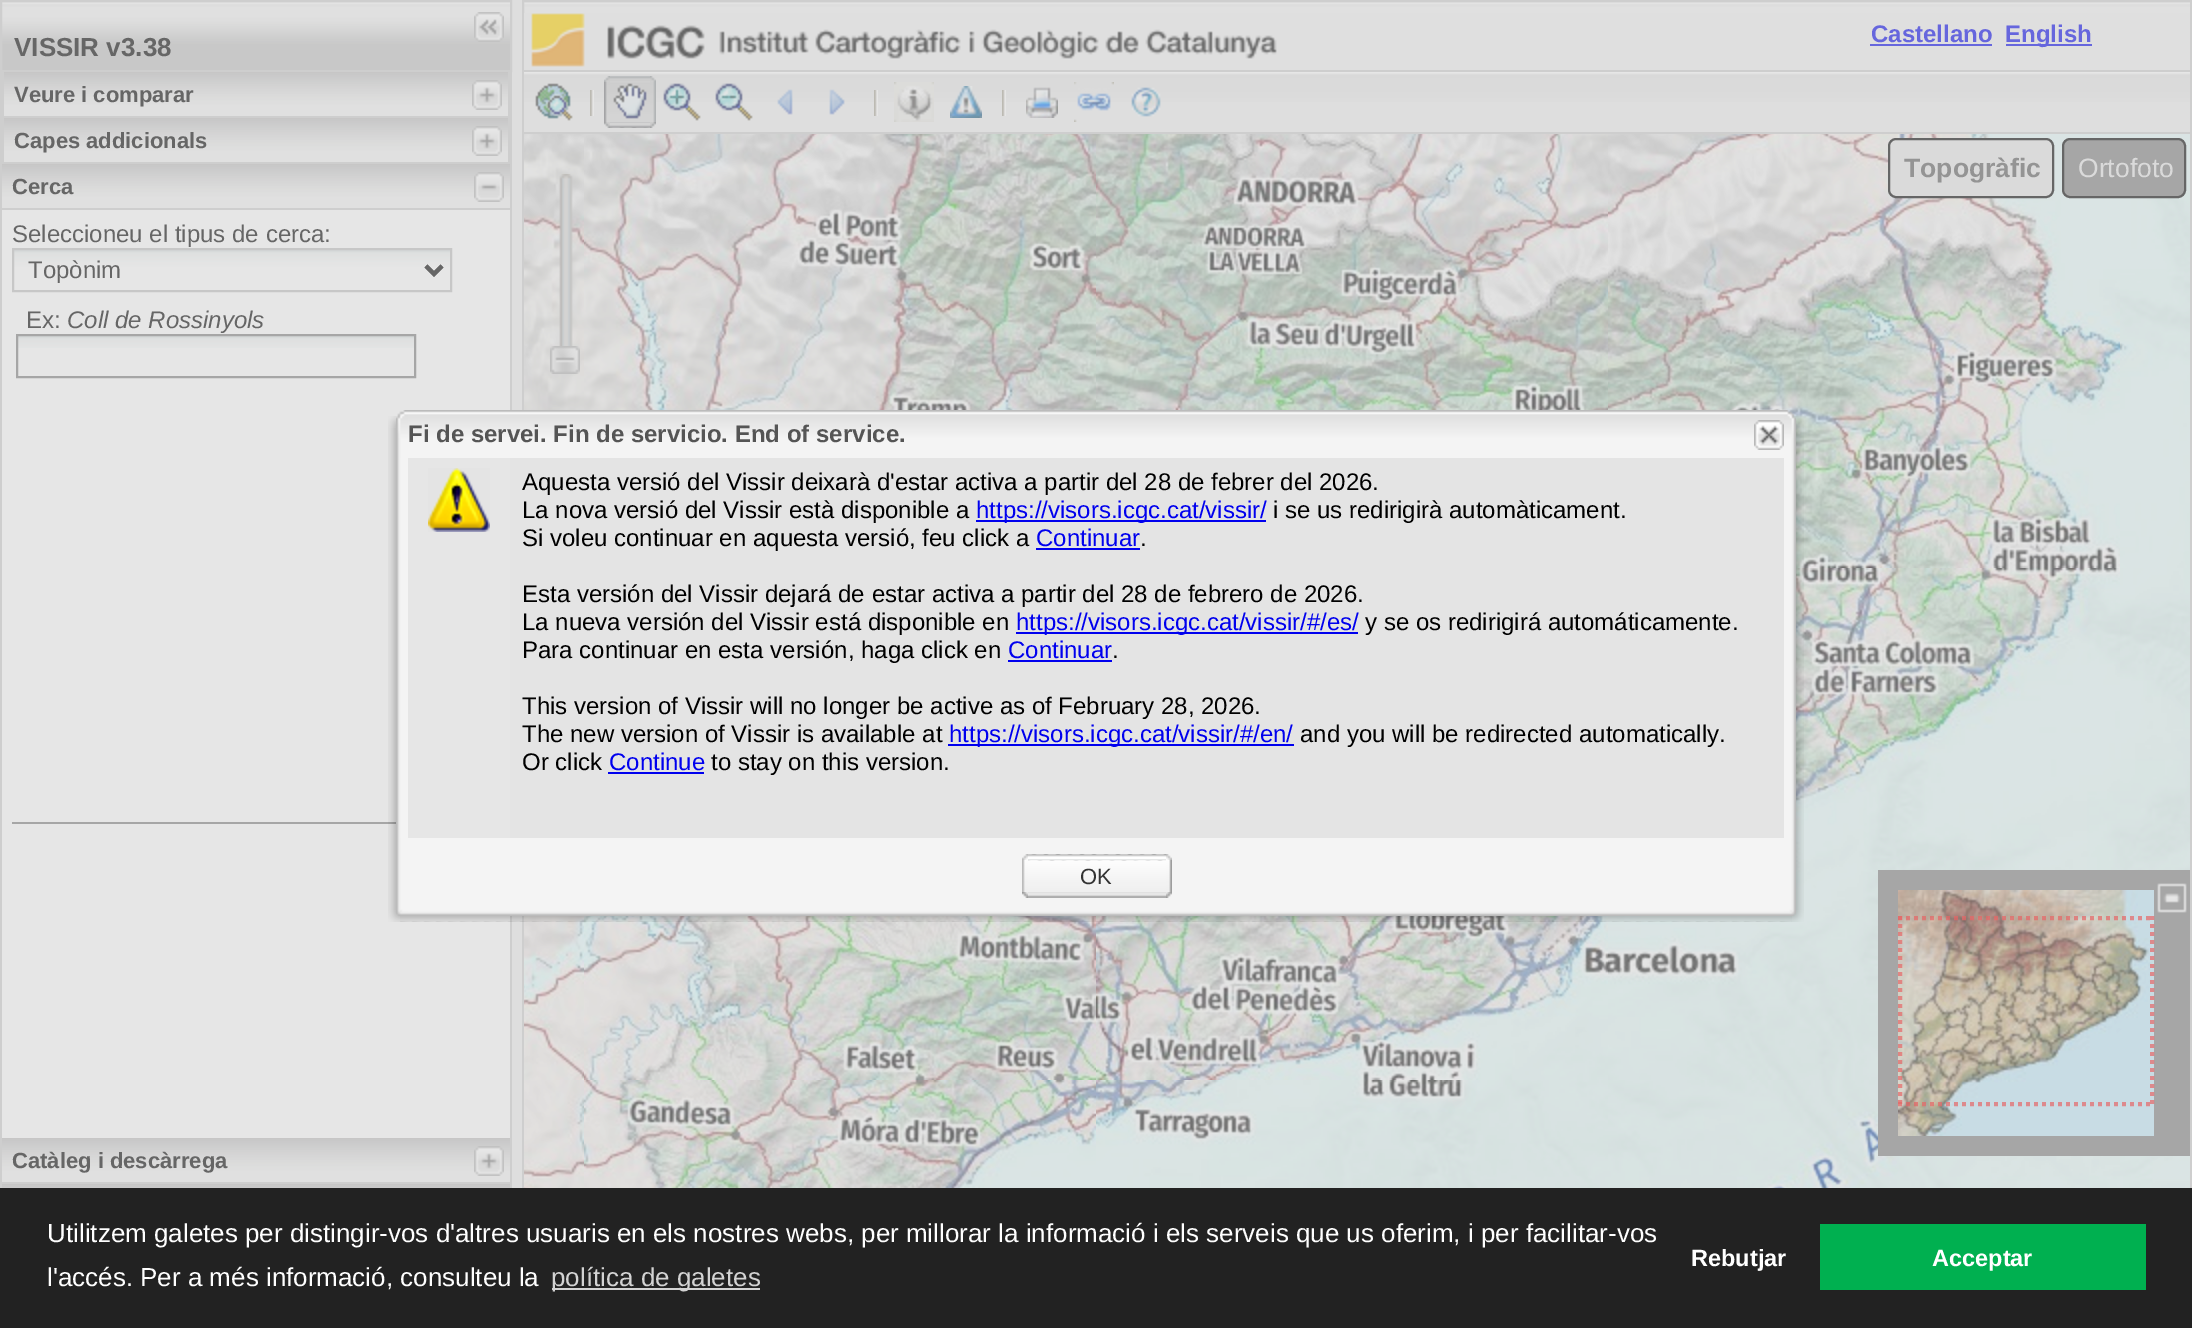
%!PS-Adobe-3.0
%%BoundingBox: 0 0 2192 1328
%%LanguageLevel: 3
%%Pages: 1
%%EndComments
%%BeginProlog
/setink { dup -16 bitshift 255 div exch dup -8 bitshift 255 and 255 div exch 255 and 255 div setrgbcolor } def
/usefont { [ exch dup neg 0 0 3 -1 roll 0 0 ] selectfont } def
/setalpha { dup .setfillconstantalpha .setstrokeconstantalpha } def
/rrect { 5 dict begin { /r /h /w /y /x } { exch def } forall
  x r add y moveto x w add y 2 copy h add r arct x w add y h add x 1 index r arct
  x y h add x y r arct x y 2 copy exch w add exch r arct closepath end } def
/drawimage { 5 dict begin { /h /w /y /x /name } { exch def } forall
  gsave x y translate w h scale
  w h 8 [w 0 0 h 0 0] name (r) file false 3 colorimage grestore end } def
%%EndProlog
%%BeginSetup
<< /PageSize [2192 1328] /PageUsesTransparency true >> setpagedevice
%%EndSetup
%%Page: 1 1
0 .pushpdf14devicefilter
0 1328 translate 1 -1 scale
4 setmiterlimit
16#DEDEDE setink
0 0 2192 1328 rectfill
(img1.raw) 2 2 508 68 drawimage
16#CECECE setink
2 setlinewidth
1 1 510 70 rectstroke
(img2.raw) 474 12 30 30 drawimage
/LiberationSans-Bold 26 usefont
16#666666 setink
14 56 moveto (VISSIR v3.38) show
[
    [2 210 508 928 16#E6E6E6]
    [510 72 2 1116 16#CECECE]
    [0 72 2 1116 16#CECECE]
] { aload pop setink rectfill } forall
(img3.raw) 4 72 504 44 drawimage
[
    [508 72 2 92 16#CECECE]
    [2 116 508 2 16#CECECE]
    [2 72 2 46 16#CECECE]
] { aload pop setink rectfill } forall
/LiberationSans-Bold 22 usefont
16#666666 setink
14 102 moveto (Veure i comparar) show
(img4.raw) 472 80 30 30 drawimage
(img3.raw) 4 118 504 44 drawimage
16#CECECE setink
2 162 508 2 rectfill
2 118 2 46 rectfill
16#666666 setink
14 148 moveto (Capes addicionals) show
(img4.raw) 472 126 30 30 drawimage
(img5.raw) 2 164 508 44 drawimage
16#CECECE setink
2 208 508 2 rectfill
16#666666 setink
12 194 moveto (Cerca) show
(img6.raw) 474 172 30 30 drawimage
/LiberationSans-Regular 24 usefont
12 242 moveto (Seleccioneu el tipus de cerca:) show
(img7.raw) 14 250 436 27 drawimage
16#C7C7C7 setink
13 249 438 42 rectstroke
16#666666 setink
4 setlinewidth
426 266 moveto 434 274 lineto 442 266 lineto stroke
28 278 moveto (Topònim) show
26 328 moveto (Ex:) show
/LiberationSans-Italic 24 usefont
67 328 moveto (Coll de Rossinyols) show
(img8.raw) 18 336 396 12 drawimage
16#A6A6A6 setink
2 setlinewidth
17 335 398 42 rectstroke
12 822 384 2 rectfill
(img5.raw) 2 1138 508 44 drawimage
16#CECECE setink
2 1182 508 2 rectfill
/LiberationSans-Bold 22 usefont
16#666666 setink
12 1168 moveto (Catàleg i descàrrega) show
(img4.raw) 474 1146 30 30 drawimage
(img9.raw) 2 1184 508 4 drawimage
(img10.raw) 388 416 11 12 drawimage
(img44.raw) 1608 134 512 434 drawimage
(img11.raw) 1793 416 11 12 drawimage
(img12.raw) 388 428 8 482 drawimage
(img46.raw) 1608 568 512 512 drawimage
(img13.raw) 1796 428 8 482 drawimage
(img14.raw) 388 910 12 12 drawimage
[
    [2190 72 2 1116 16#CECECE]
    [522 132 1670 2 16#CECECE]
    [522 72 2 1116 16#CECECE]
] { aload pop setink rectfill } forall
(img48.raw) 524 916 60 164 drawimage
(img49.raw) 584 916 512 164 drawimage
(img50.raw) 1096 916 512 164 drawimage
(img15.raw) 400 916 1392 6 drawimage
(img16.raw) 1792 910 12 12 drawimage
(img17.raw) 524 2 1666 11 drawimage
523 1 1668 70 rectstroke
(img18.raw) 524 13 1666 57 drawimage
/LiberationSans-Bold 24 usefont
16#6666DD setink
1871 42 moveto (Castellano) show
1870 44 122 2 rectfill
2006 44 86 2 rectfill
2005 42 moveto (English) show
(img19.raw) 524 72 1666 30 drawimage
(img20.raw) 535 83 38 38 drawimage
(img21.raw) 590 90 4 26 drawimage
(img22.raw) 604 76 6 6 drawimage
(img23.raw) 610 76 40 6 drawimage
(img24.raw) 650 76 6 6 drawimage
(img25.raw) 604 82 6 40 drawimage
(img26.raw) 610 82 40 40 drawimage
(img27.raw) 613 83 34 36 drawimage
(img28.raw) 650 82 6 40 drawimage
(img29.raw) 604 122 6 6 drawimage
(img30.raw) 610 122 40 6 drawimage
(img31.raw) 650 122 6 6 drawimage
(img32.raw) 663 83 38 38 drawimage
(img33.raw) 715 83 38 38 drawimage
(img34.raw) 777 89 16 26 drawimage
(img35.raw) 829 89 16 26 drawimage
(img21.raw) 874 90 4 26 drawimage
(img36.raw) 894 82 40 40 drawimage
(img37.raw) 950 86 32 32 drawimage
(img21.raw) 1002 90 4 26 drawimage
(img38.raw) 1026 87 32 31 drawimage
(img39.raw) 1074 82 40 40 drawimage
(img40.raw) 1131 87 30 30 drawimage
(img41.raw) 524 134 60 276 drawimage
(img42.raw) 584 134 512 276 drawimage
(img43.raw) 1096 134 512 276 drawimage
(img45.raw) 2120 134 70 434 drawimage
(img47.raw) 2120 568 70 302 drawimage
(img51.raw) 524 1080 60 108 drawimage
(img52.raw) 584 1080 512 108 drawimage
(img53.raw) 1096 1080 512 108 drawimage
(img54.raw) 1608 1080 512 108 drawimage
(img55.raw) 2120 1156 70 32 drawimage
16#DADADA setink
1889 139 164 58 7 rrect gsave fill grestore
16#666666 setink
stroke
/LiberationSans-Bold 26.5 usefont
16#949494 setink
1904 177 moveto (Topogràfic) show
16#A6A6A6 setink
2063 139 122 58 7 rrect gsave fill grestore
16#666666 setink
stroke
/LiberationSans-Regular 26.5 usefont
16#DADADA setink
2078 177 moveto (Ortofoto) show
16#A6A6A6 setink
1878 870 312 286 rectfill
(img56.raw) 1898 890 256 246 drawimage
0.7 setalpha
16#E66666 setink
4 setlinewidth
[4 4] 0 setdash
1898 918 moveto 2154 918 lineto stroke
2152 916 moveto 2152 1106 lineto stroke
1898 1104 moveto 2154 1104 lineto stroke
1900 916 moveto 1900 1106 lineto stroke
1 setalpha
(img57.raw) 2157 883 30 30 drawimage
(img58.raw) 559 174 14 14 drawimage
(img59.raw) 559 188 14 158 drawimage
(img60.raw) 550 346 30 28 drawimage
(img61.raw) 396 410 12 48 drawimage
(img62.raw) 1784 410 12 48 drawimage
(img63.raw) 408 410 1376 48 drawimage
/LiberationSans-Bold 24 usefont
16#555555 setink
408 442 moveto (Fi de servei. Fin de servicio. End of service.) show
(img64.raw) 1754 420 30 30 drawimage
(img65.raw) 396 458 12 380 drawimage
(img66.raw) 1784 458 12 380 drawimage
16#E4E4E4 setink
510 458 1274 380 rectfill
(img67.raw) 428 468 62 64 drawimage
/LiberationSans-Regular 24 usefont
16#000000 setink
522 490 moveto (Aquesta versió del Vissir deixarà d'estar activa a partir del 28 de febrer del 2026.) show
522 518 moveto (La nova versió del Vissir està disponible a) show
16#0000EE setink
976 520 290 2 rectfill
976 518 moveto (https://visors.icgc.cat/vissir/) show
16#000000 setink
1273 518 moveto (i se us redirigirà automàticament.) show
522 546 moveto (Si voleu continuar en aquesta versió, feu click a) show
16#0000EE setink
1036 546 moveto (Continuar) show
16#000000 setink
1140 546 moveto (.) show
16#0000EE setink
1036 548 104 2 rectfill
16#000000 setink
522 602 moveto (Esta versión del Vissir dejará de estar activa a partir del 28 de febrero de 2026.) show
522 630 moveto (La nueva versión del Vissir está disponible en) show
16#0000EE setink
1016 632 342 2 rectfill
1016 630 moveto (https://visors.icgc.cat/vissir/#/es/) show
16#000000 setink
1365 630 moveto (y se os redirigirá automáticamente.) show
522 658 moveto (Para continuar en esta versión, haga click en) show
16#0000EE setink
1008 658 moveto (Continuar) show
16#000000 setink
1112 658 moveto (.) show
16#0000EE setink
1008 660 104 2 rectfill
16#000000 setink
522 714 moveto (This version of Vissir will no longer be active as of February 28, 2026.) show
522 742 moveto (The new version of Vissir is available at) show
16#0000EE setink
948 744 346 2 rectfill
949 742 moveto (https://visors.icgc.cat/vissir/#/en/) show
16#000000 setink
1300 742 moveto (and you will be redirected automatically.) show
522 770 moveto (Or click) show
16#0000EE setink
609 770 moveto (Continue) show
608 772 96 2 rectfill
16#000000 setink
711 770 moveto (to stay on this version.) show
(img68.raw) 396 838 12 78 drawimage
(img69.raw) 1784 838 12 78 drawimage
(img70.raw) 408 838 1376 78 drawimage
(img71.raw) 1022 854 6 6 drawimage
(img72.raw) 1028 854 138 6 drawimage
(img73.raw) 1166 854 6 6 drawimage
(img74.raw) 1022 860 6 32 drawimage
(img75.raw) 1028 860 138 32 drawimage
/LiberationSans-Regular 22 usefont
16#333333 setink
1080 884 moveto (OK) show
(img76.raw) 1166 860 6 32 drawimage
(img77.raw) 1022 892 6 6 drawimage
(img78.raw) 1028 892 138 6 drawimage
(img79.raw) 1166 892 6 6 drawimage
16#222222 setink
0 1188 2192 140 rectfill
/LiberationSans-Regular 26 usefont
16#FFFFFF setink
47 1242 moveto (Utilitzem galetes per distingir-vos d'altres usuaris en els nostres webs, per millorar la informació i els serveis que us oferim, i per facilitar-vos) show
47 1286 moveto (l'accés. Per a més informació, consulteu la) show
16#D3D3D3 setink
552 1288 208 2 rectfill
551 1286 moveto (política de galetes) show
/LiberationSans-Bold 23.5 usefont
16#FFFFFF setink
1691 1266 moveto (Rebutjar) show
16#00B050 setink
1820 1224 326 66 rectfill
16#FFFFFF setink
1932 1266 moveto (Acceptar) show
.poppdf14devicefilter showpage
%%EOF
